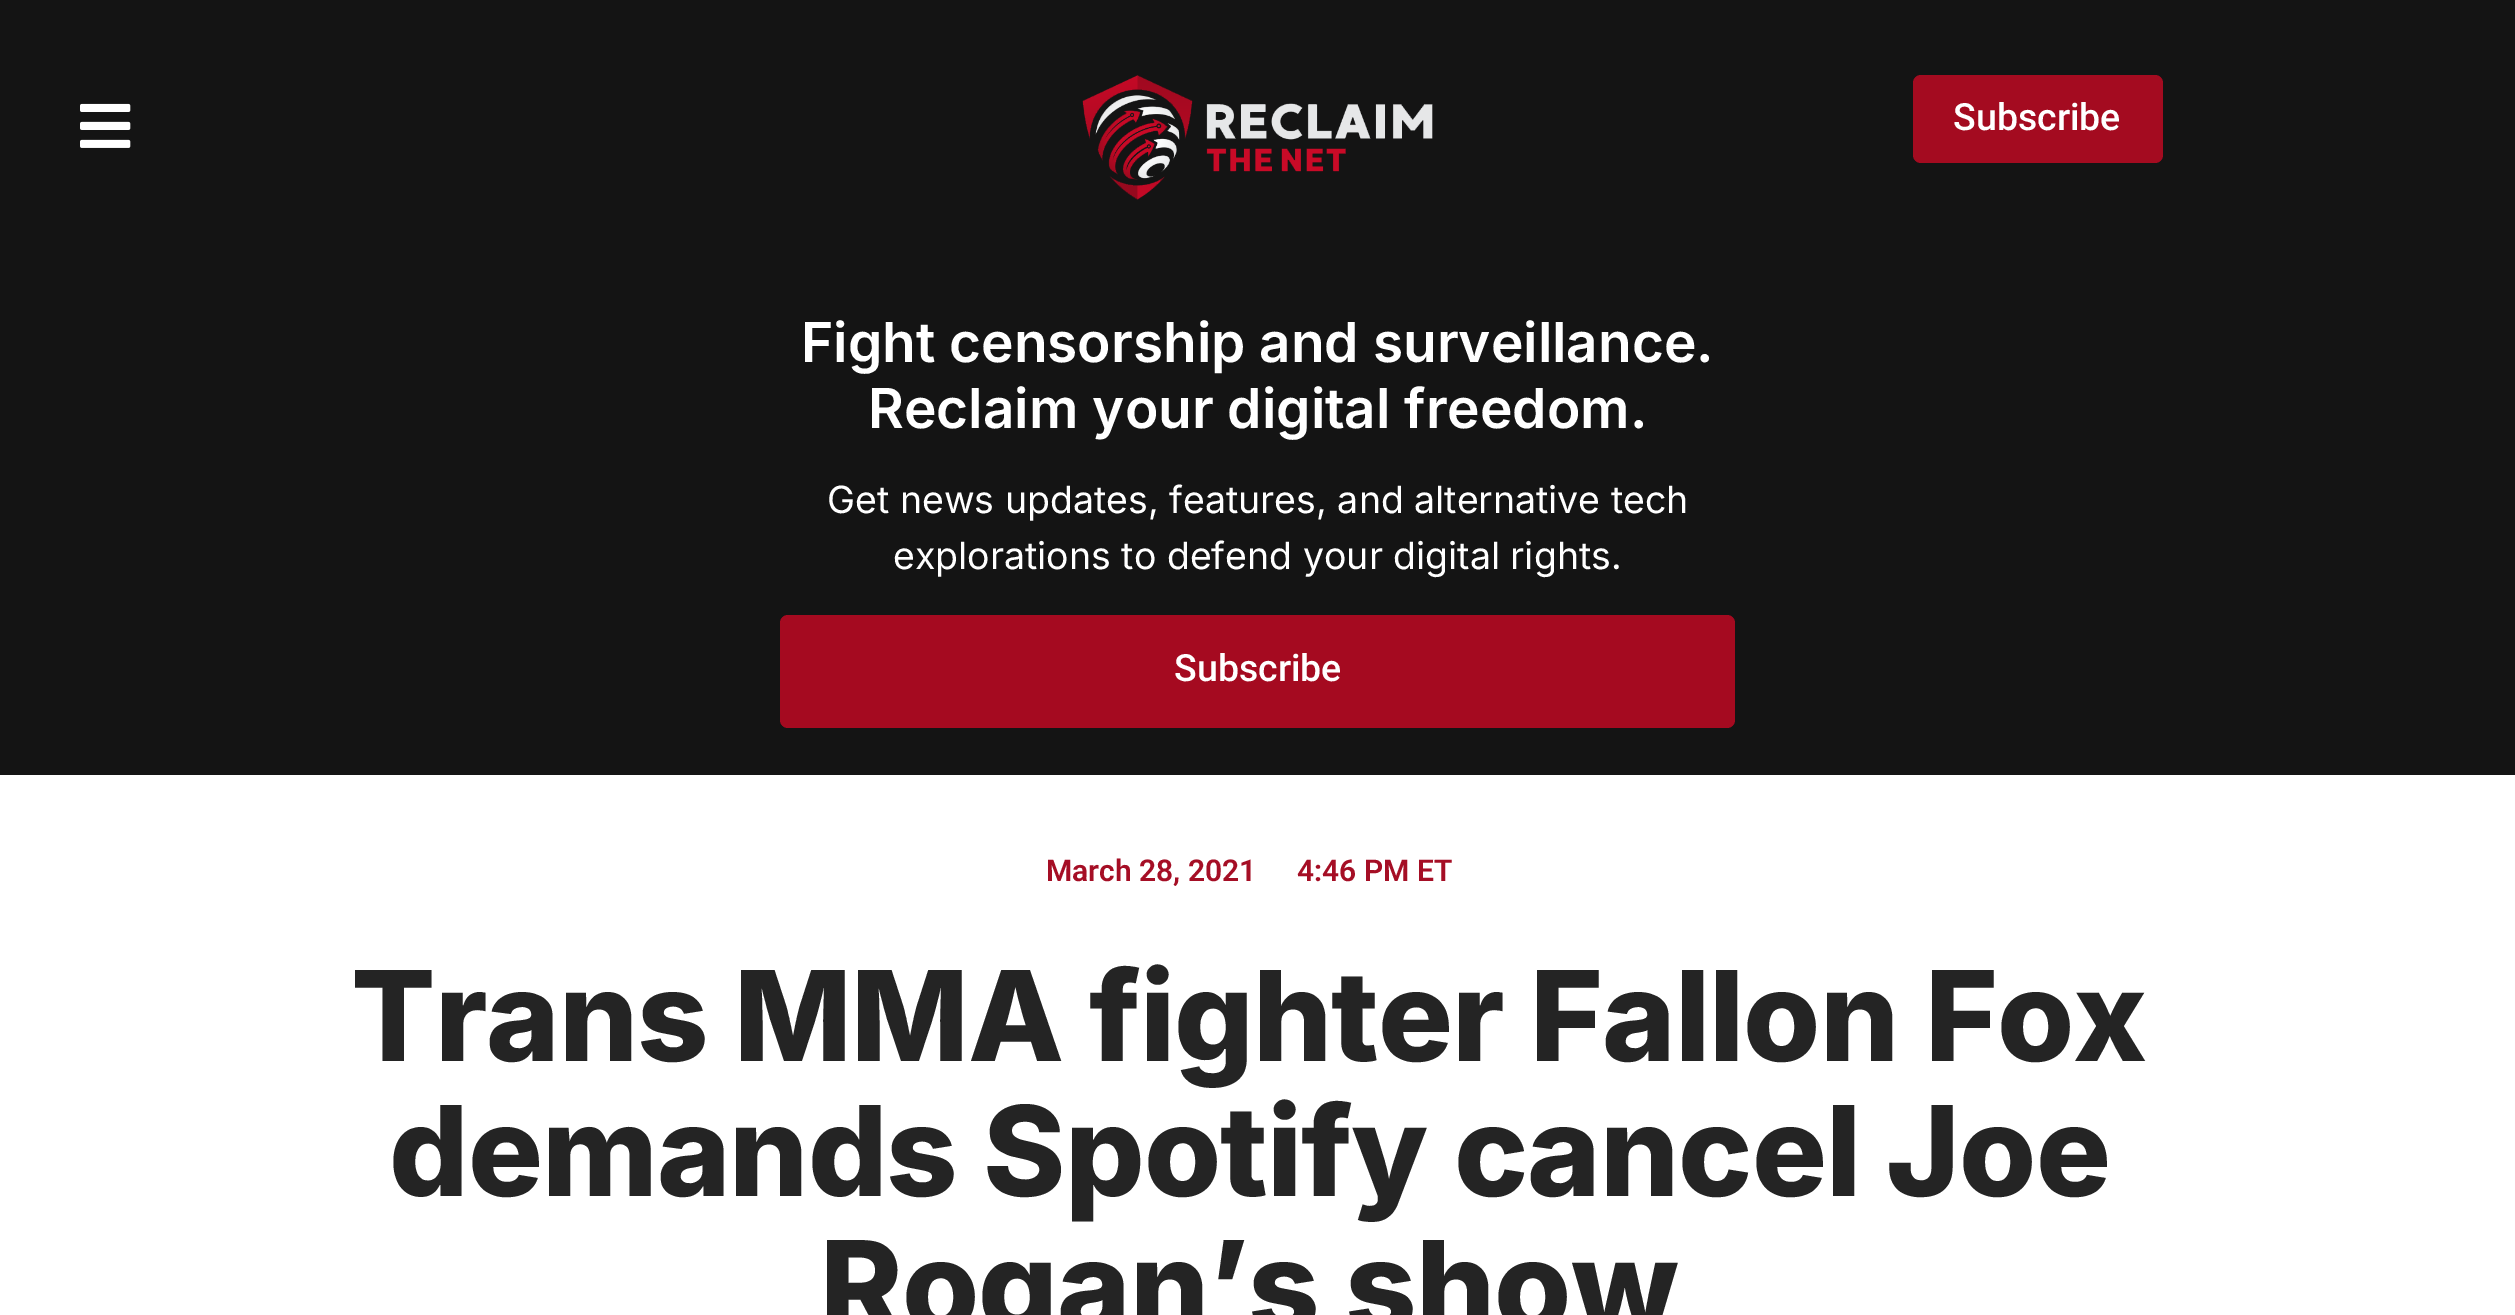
%!PS-Adobe-3.0
%%BoundingBox: 0 0 2515 1315
%%LanguageLevel: 3
%%Pages: 1
%%EndComments
%%BeginProlog
/setink { dup -16 bitshift 255 div exch dup -8 bitshift 255 and 255 div exch 255 and 255 div setrgbcolor } def
/usefont { [ exch dup neg 0 0 3 -1 roll 0 0 ] selectfont } def
/rrect { 5 dict begin { /r /h /w /y /x } { exch def } forall
  x r add y moveto x w add y 2 copy h add r arct x w add y h add x 1 index r arct
  x y h add x y r arct x y 2 copy exch w add exch r arct closepath end } def
/drawimage { 5 dict begin { /h /w /y /x /name } { exch def } forall
  gsave x y translate w h scale
  w h 8 [w 0 0 h 0 0] name (r) file false 3 colorimage grestore end } def
%%EndProlog
%%BeginSetup
<< /PageSize [2515 1315] >> setpagedevice
%%EndSetup
%%Page: 1 1
0 1315 translate 1 -1 scale
4 setmiterlimit
16#FFFFFF setink
0 0 2515 1315 rectfill
16#141414 setink
0 0 2515 775 rectfill
(img1.raw) 80 103 51 45 drawimage
(img2.raw) 1082 75 351 125 drawimage
16#A40B20 setink
1913 75 250 88 8 rrect fill
/Roboto-Medium 37.5 usefont
16#FFFFFF setink
1953 130 moveto (Subscribe) show
/Inter-SemiBold 55 usefont
801 362 moveto (Fight censorship and surveillance.) show
868 428 moveto (Reclaim your digital freedom.) show
/Inter-Regular 37.5 usefont
827 513 moveto (Get news updates, features, and alternative tech) show
893 569 moveto (explorations to defend your digital rights.) show
16#A50A20 setink
780 615 955 113 8 rrect fill
/Roboto-Medium 37.5 usefont
16#FFFFFF setink
1174 681 moveto (Subscribe) show
/Roboto-SemiBold 30 usefont
16#A50E25 setink
1046 881 moveto (March 28, 2021) show
1297 881 moveto (4:46 PM ET) show
/Inter-ExtraBold 125 usefont
16#242424 setink
351 1061 moveto -1 0 (Trans MMA fighter Fallon Fox) ashow
389 1196 moveto -1 0 (demands Spotify cancel Joe) ashow
820 1331 moveto -1 0 (Rogan’s show) ashow
showpage
%%EOF
